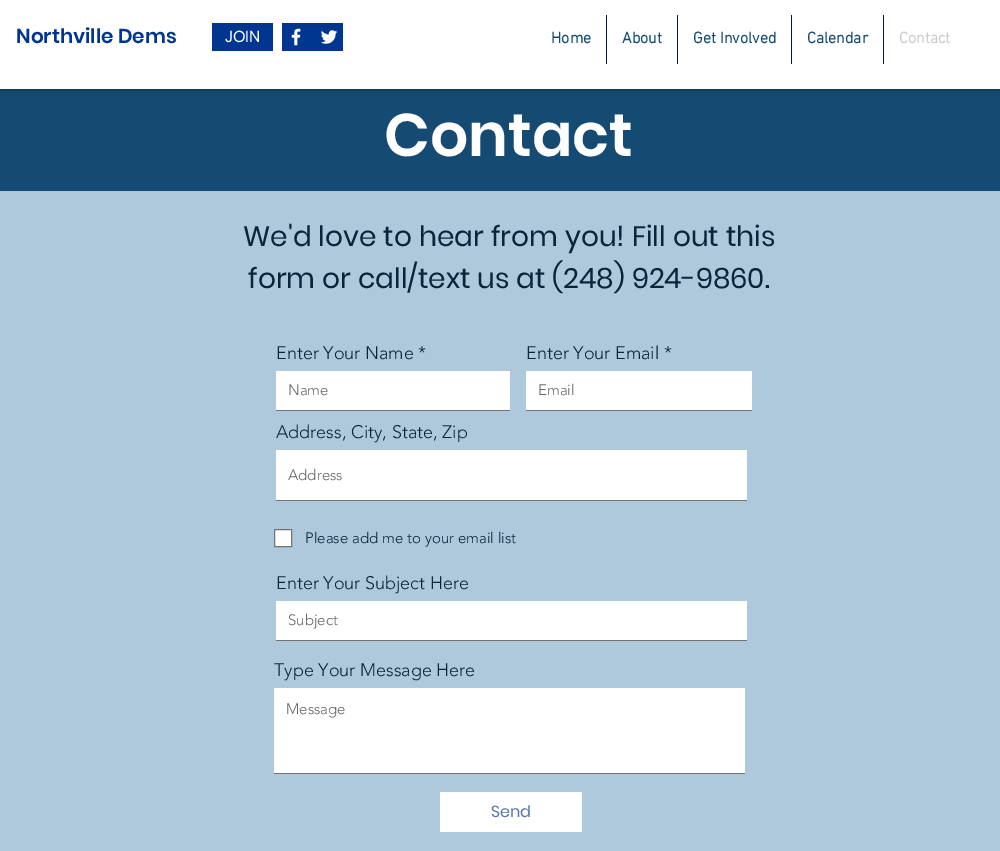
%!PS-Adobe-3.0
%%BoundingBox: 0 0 1000 851
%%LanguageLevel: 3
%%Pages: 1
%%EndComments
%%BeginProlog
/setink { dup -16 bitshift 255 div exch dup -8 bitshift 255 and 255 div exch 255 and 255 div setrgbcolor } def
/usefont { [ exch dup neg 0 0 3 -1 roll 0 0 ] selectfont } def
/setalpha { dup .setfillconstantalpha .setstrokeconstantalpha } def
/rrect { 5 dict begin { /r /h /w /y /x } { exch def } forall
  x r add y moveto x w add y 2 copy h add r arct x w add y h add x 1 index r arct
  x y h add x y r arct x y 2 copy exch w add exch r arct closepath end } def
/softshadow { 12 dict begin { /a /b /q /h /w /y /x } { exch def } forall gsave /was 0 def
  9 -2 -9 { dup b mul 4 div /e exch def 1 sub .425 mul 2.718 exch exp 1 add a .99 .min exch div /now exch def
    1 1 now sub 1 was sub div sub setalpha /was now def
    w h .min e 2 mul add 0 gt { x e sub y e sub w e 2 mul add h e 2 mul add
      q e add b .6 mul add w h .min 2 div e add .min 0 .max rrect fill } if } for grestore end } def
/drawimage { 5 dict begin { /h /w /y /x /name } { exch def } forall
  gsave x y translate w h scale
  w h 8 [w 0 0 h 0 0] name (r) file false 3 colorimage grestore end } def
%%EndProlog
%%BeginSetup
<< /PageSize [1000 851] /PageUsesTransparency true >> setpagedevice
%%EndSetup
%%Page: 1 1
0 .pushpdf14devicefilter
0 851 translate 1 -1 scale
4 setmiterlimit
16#154B73 setink
0 0 1000 851 rectfill
16#000000 setink
0 0 1000 89 0 2.5 0.5 softshadow
16#FFFFFF setink
0 0 1000 89 rectfill
/Poppins-SemiBold 20 usefont
16#003690 setink
16 43 moveto (Northville Dems) show
212 23 61 28 rectfill
/Poppins-Regular 16 usefont
16#FFFFFF setink
225 42 moveto (JOIN) show
16#003690 setink
282 23 61 28 rectfill
(img1.raw) 291 28 10 18 drawimage
(img2.raw) 321 30 17 14 drawimage
/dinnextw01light-Bold 16 usefont
16#154B73 setink
551 43 moveto (Home) show
16#001B48 setink
606 15 1 49 rectfill
16#154B73 setink
622 43 moveto (About) show
16#001B48 setink
677 15 1 49 rectfill
16#154B73 setink
693 43 moveto (Get Involved) show
16#001B48 setink
791 15 1 49 rectfill
16#154B73 setink
807 43 moveto (Calendar) show
16#001B48 setink
883 15 1 49 rectfill
16#CCCCCC setink
899 43 moveto (Contact) show
/Poppins-SemiBold 60 usefont
16#FFFFFF setink
384 156 moveto (Contact) show
16#AFC9DC setink
0 191 1000 660 rectfill
/Poppins-Regular 28 usefont
16#0A253A setink
243 246 moveto (We'd love to hear from you! Fill out this) show
248 288 moveto (form or call/text us at \(248\) 924-9860.) show
/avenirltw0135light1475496-Light 18 usefont
276 359 moveto (Enter Your Name *) show
16#FFFFFF setink
276 371 234 39 rectfill
16#737373 setink
276 410 234 1 rectfill
/avenirltw0135light1475496-Light 15 usefont
16#666666 setink
288 395 moveto (Name) show
/avenirltw0135light1475496-Light 18 usefont
16#0A253A setink
526 359 moveto (Enter Your Email *) show
16#FFFFFF setink
526 371 226 39 rectfill
16#737373 setink
526 410 226 1 rectfill
/avenirltw0135light1475496-Light 15 usefont
16#666666 setink
538 395 moveto (Email) show
/avenirltw0135light1475496-Light 18 usefont
16#0A253A setink
276 438 moveto (Address, City, State, Zip) show
16#FFFFFF setink
276 450 471 50 rectfill
16#737373 setink
276 500 471 1 rectfill
/avenirltw0135light1475496-Light 15 usefont
16#666666 setink
288 480 moveto (Address) show
16#FFFFFF setink
274.5 529.5 moveto 291.5 529.5 lineto 291.5 546.5 lineto 274.5 546.5 lineto closepath gsave fill grestore
16#737373 setink
stroke
16#0A253A setink
305 543 moveto (Please add me to your email list) show
/avenirltw0135light1475496-Light 18 usefont
276 589 moveto (Enter Your Subject Here) show
16#FFFFFF setink
276 601 471 39 rectfill
16#737373 setink
276 640 471 1 rectfill
/avenirltw0135light1475496-Light 15 usefont
16#666666 setink
288 625 moveto (Subject) show
/avenirltw0135light1475496-Light 18 usefont
16#0A253A setink
274 676 moveto (Type Your Message Here) show
16#FFFFFF setink
274 688 471 85 rectfill
16#737373 setink
274 773 471 1 rectfill
/avenirltw0135light1475496-Light 15 usefont
16#666666 setink
286 714 moveto (Message) show
16#FFFFFF setink
440 792 142 40 rectfill
/Poppins-Regular 16 usefont
16#5676AC setink
491 817 moveto (Send) show
.poppdf14devicefilter showpage
%%EOF
